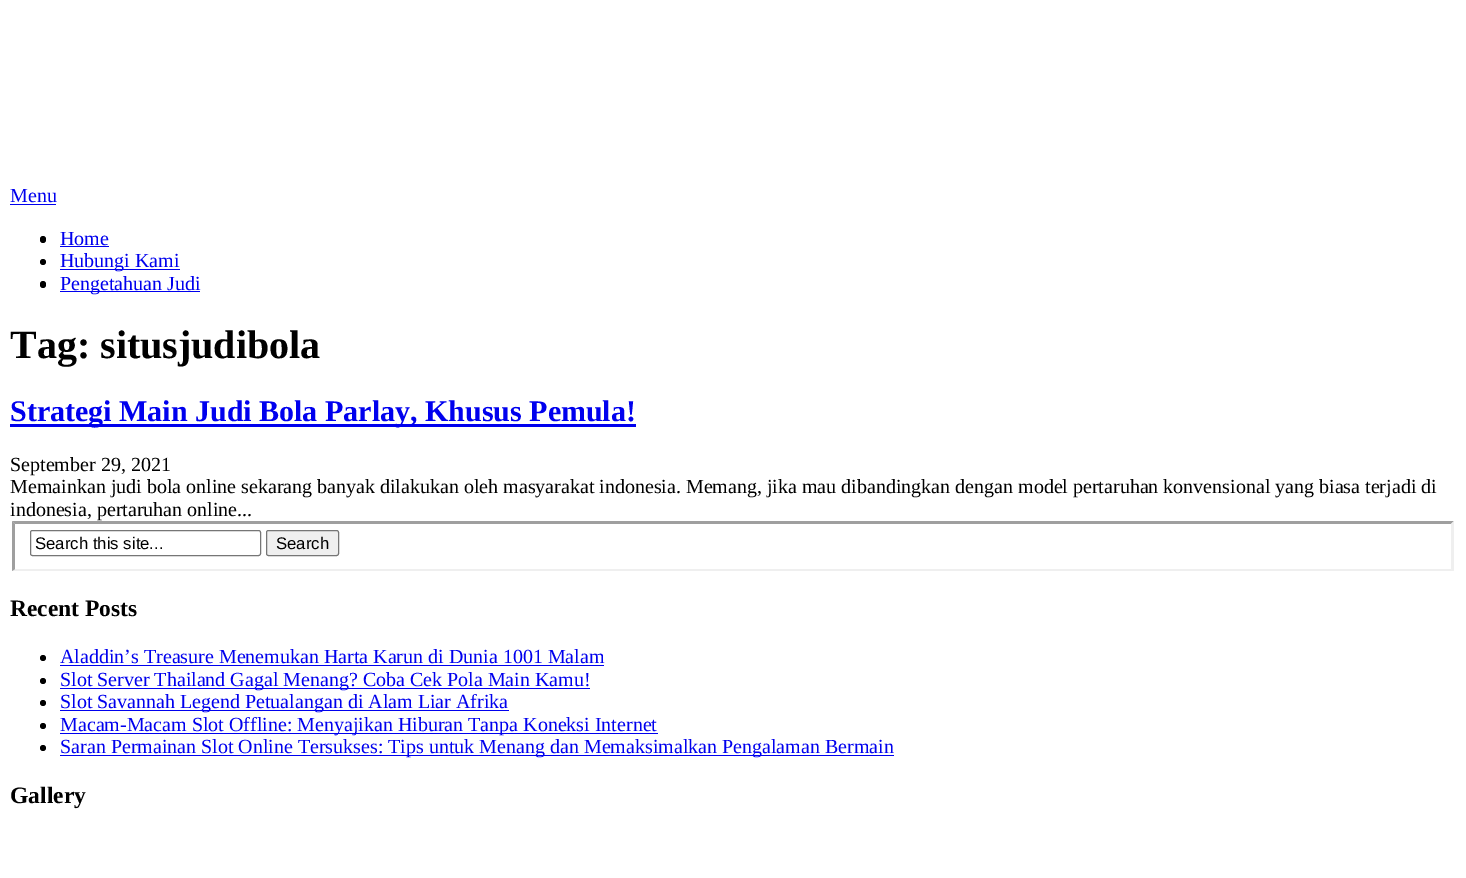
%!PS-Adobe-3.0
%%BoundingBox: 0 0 1466 878
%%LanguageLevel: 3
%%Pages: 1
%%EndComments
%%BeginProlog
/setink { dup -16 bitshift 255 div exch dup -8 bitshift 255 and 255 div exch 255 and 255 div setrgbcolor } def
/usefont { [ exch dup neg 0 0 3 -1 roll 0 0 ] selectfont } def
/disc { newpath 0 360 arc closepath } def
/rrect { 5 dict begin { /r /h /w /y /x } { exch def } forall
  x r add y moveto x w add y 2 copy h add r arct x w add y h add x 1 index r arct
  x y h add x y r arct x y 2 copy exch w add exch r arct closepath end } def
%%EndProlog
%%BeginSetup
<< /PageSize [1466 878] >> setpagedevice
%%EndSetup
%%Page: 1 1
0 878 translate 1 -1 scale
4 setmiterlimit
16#FFFFFF setink
0 0 1466 878 rectfill
/LiberationSerif-Regular 20 usefont
16#0000EE setink
10 202 moveto (Menu) show
10 204 46 1 rectfill
16#000000 setink
40 236 6 7 3 rrect fill
16#0000EE setink
60 245 moveto (Home) show
60 246 49 1 rectfill
16#000000 setink
43 262 3 disc fill
16#0000EE setink
60 269 120 1 rectfill
60 267 moveto (Hubungi Kami) show
16#000000 setink
40 281 6 7 3 rrect fill
16#0000EE setink
60 291 140 1 rectfill
60 290 moveto (Pengetahuan Judi) show
/LiberationSerif-Bold 40 usefont
16#000000 setink
10 358 moveto (Tag: situsjudibola) show
16#0000EE setink
10 424 626 3 rectfill
/LiberationSerif-Bold 30 usefont
10 421 moveto (Strategi Main Judi Bola Parlay, Khusus Pemula!) show
/LiberationSerif-Regular 20 usefont
16#000000 setink
[
    [(September 29, 2021) 10 471]
    [(Memainkan judi bola online sekarang banyak dilakukan oleh masyarakat indonesia. Memang, jika mau dibandingkan dengan model pertaruhan konvensional yang biasa terjadi di) 10 493]
    [(indonesia, pertaruhan online...) 10 516]
] { aload pop moveto show } forall
16#9F9F9F setink
12 521 moveto 1454 521 lineto 1451 524 lineto 15 524 lineto closepath fill
16#EFEFEF setink
1454 521 moveto 1454 571 lineto 1451 569 lineto 1451 524 lineto closepath fill
1454 571 moveto 12 571 lineto 15 569 lineto 1451 569 lineto closepath fill
16#9F9F9F setink
12 571 moveto 12 521 lineto 15 524 lineto 15 569 lineto closepath fill
16#767676 setink
30.5 530.5 230 25 2 rrect stroke
/LiberationSans-Regular 16.75 usefont
16#000000 setink
35 549 moveto (Search this site...) show
16#EFEFEF setink
266.5 530.5 72 25 2 rrect gsave fill grestore
16#767676 setink
stroke
16#000000 setink
276 549 moveto (Search) show
/LiberationSerif-Bold 23.5 usefont
10 616 moveto (Recent Posts) show
43 658 3 disc fill
/LiberationSerif-Regular 20 usefont
16#0000EE setink
60 663 moveto (Aladdin’s Treasure Menemukan Harta Karun di Dunia 1001 Malam) show
60 665 544 1 rectfill
16#000000 setink
43 681 3 disc fill
16#0000EE setink
60 688 530 1 rectfill
60 686 moveto (Slot Server Thailand Gagal Menang? Coba Cek Pola Main Kamu!) show
16#000000 setink
43 703 3 disc fill
16#0000EE setink
60 710 449 1 rectfill
60 708 moveto (Slot Savannah Legend Petualangan di Alam Liar Afrika) show
16#000000 setink
43 726 3 disc fill
16#0000EE setink
60 733 598 1 rectfill
60 731 moveto (Macam-Macam Slot Offline: Menyajikan Hiburan Tanpa Koneksi Internet) show
16#000000 setink
43 748 3 disc fill
16#0000EE setink
60 755 834 1 rectfill
60 753 moveto (Saran Permainan Slot Online Tersukses: Tips untuk Menang dan Memaksimalkan Pengalaman Bermain) show
/LiberationSerif-Bold 23.5 usefont
16#000000 setink
10 803 moveto (Gallery) show
showpage
%%EOF
